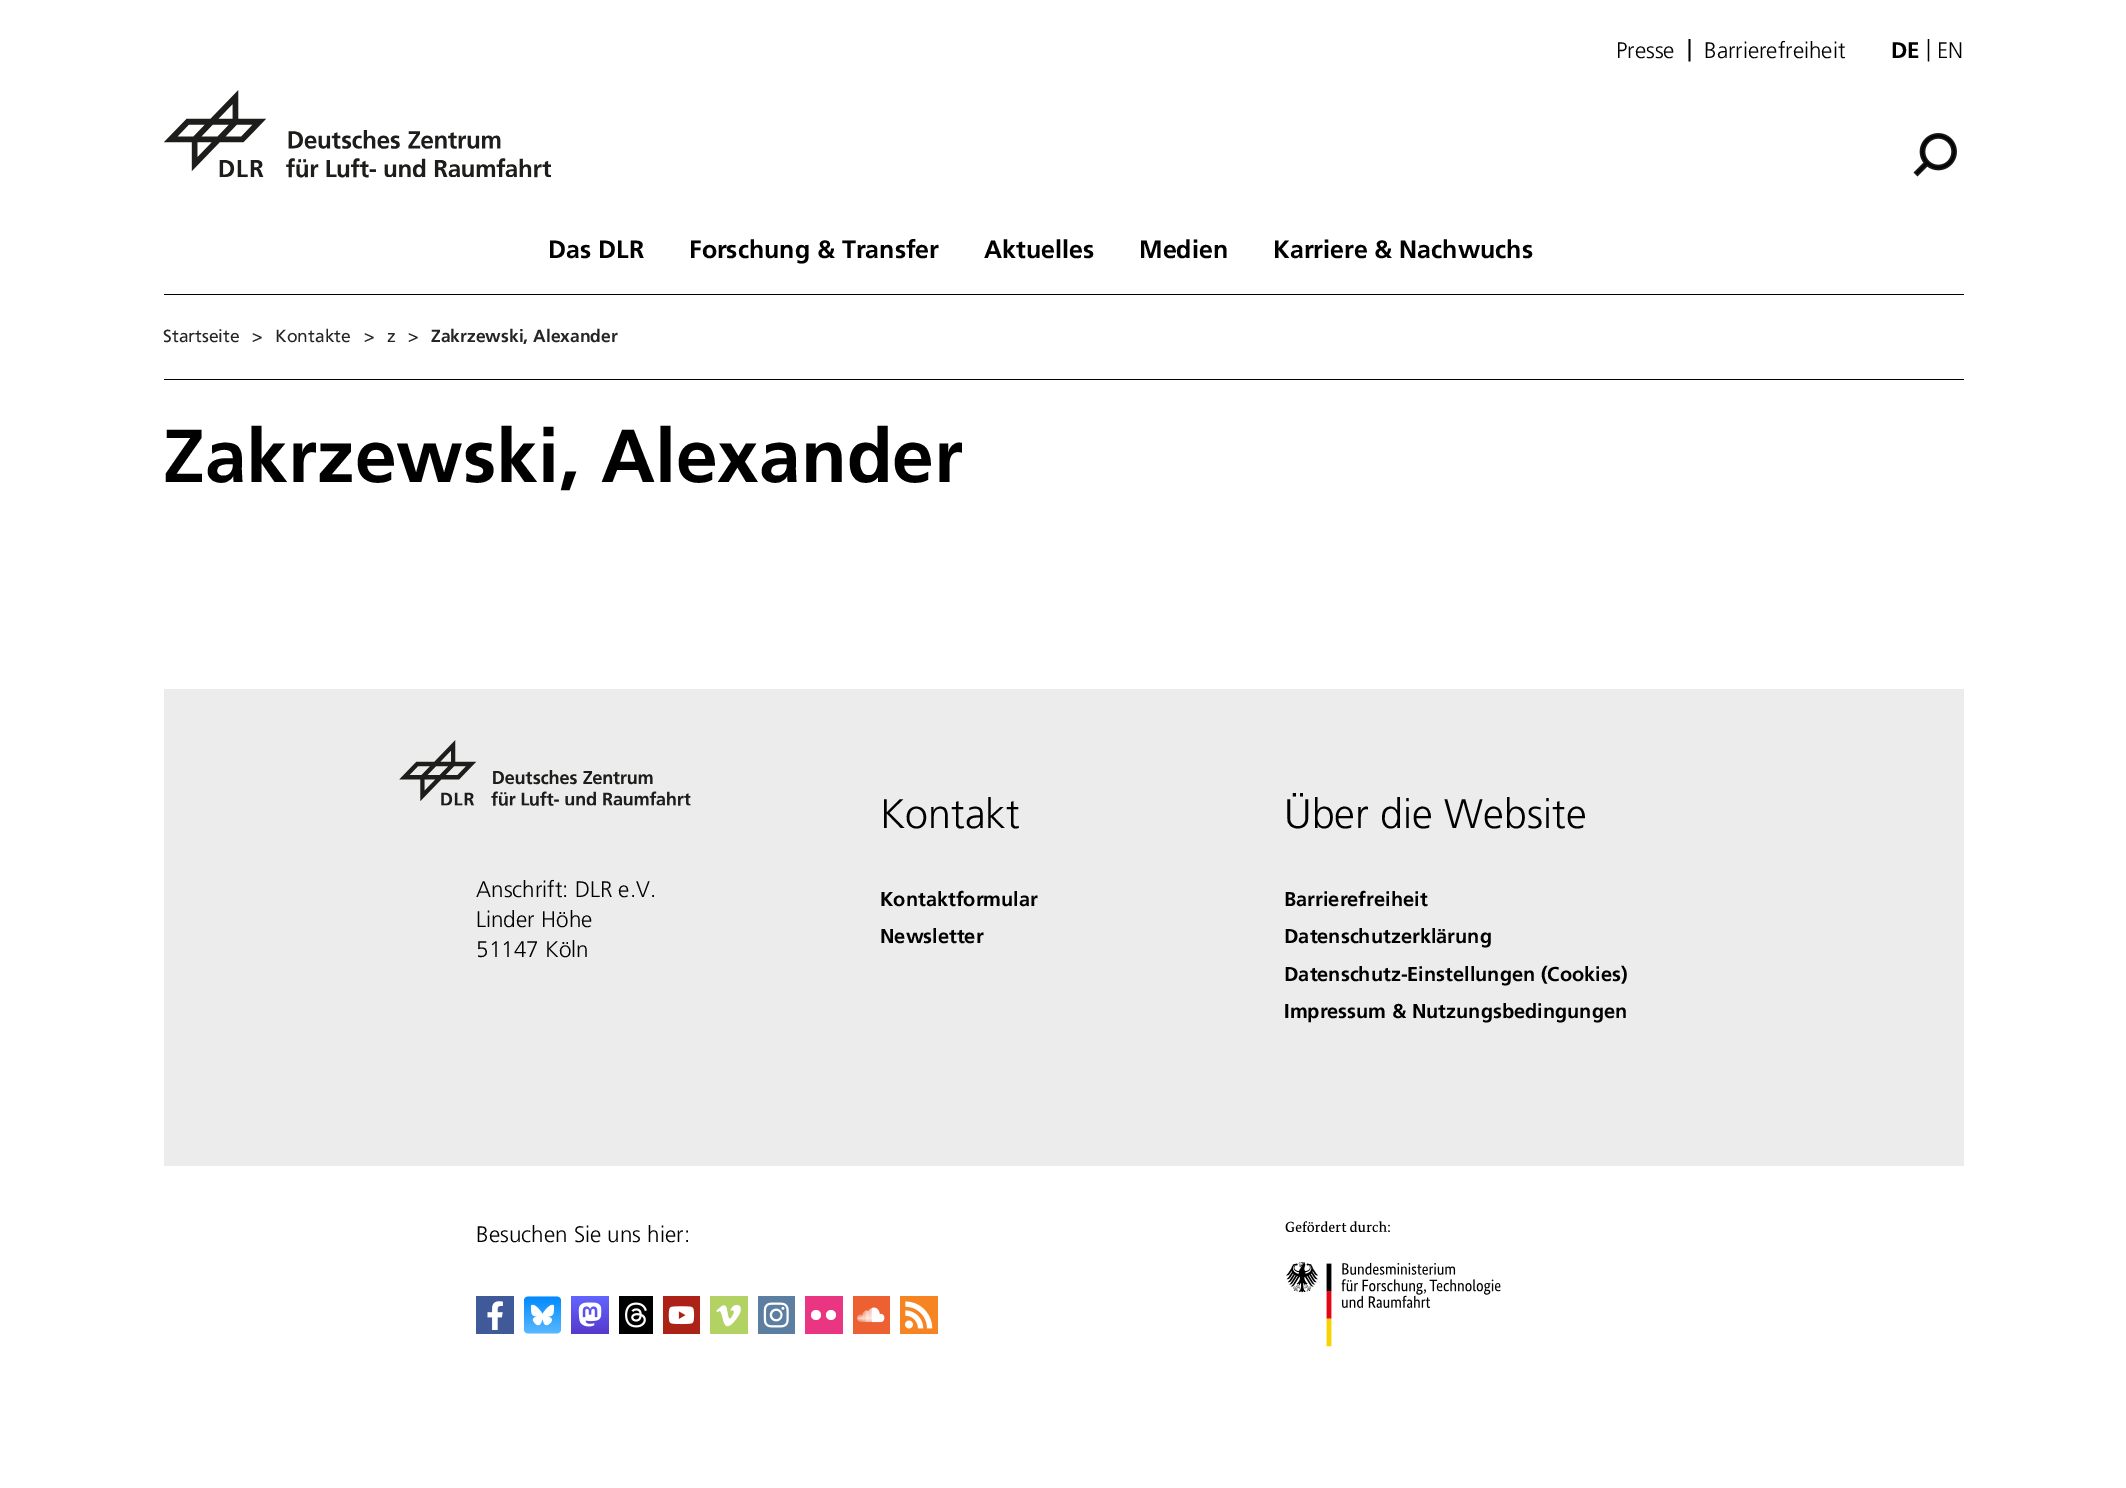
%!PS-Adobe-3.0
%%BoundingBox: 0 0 2126 1488
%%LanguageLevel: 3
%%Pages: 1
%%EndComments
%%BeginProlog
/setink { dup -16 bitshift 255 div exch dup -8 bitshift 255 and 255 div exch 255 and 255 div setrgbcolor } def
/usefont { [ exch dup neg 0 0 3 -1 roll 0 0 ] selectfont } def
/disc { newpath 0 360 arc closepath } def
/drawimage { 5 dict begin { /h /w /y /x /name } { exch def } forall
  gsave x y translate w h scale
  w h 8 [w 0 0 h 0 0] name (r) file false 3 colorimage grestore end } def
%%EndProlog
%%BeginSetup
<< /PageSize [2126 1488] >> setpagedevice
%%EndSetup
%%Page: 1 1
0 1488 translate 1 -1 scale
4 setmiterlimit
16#FFFFFF setink
0 0 2126 1488 rectfill
/Frutiger-Light 22.5 usefont
16#000000 setink
1616 58 moveto (Presse) show
/Frutiger-Regular 22.5 usefont
1687 56 moveto (|) show
/Frutiger-Light 22.5 usefont
1704 58 moveto (Barrierefreiheit) show
/Frutiger-Bold 22.5 usefont
1891 58 moveto (DE) show
/Frutiger-Light 22.5 usefont
1926 56 moveto (|) show
1937 58 moveto (EN) show
(img1.raw) 164 90 387 88 drawimage
(img2.raw) 1913 133 44 44 drawimage
/Frutiger-Bold 25 usefont
[
    [(Das DLR) 548 258]
    [(Forschung & Transfer) 689 258]
    [(Aktuelles) 984 258]
    [(Medien) 1139 258]
    [(Karriere & Nachwuchs) 1273 258]
] { aload pop moveto show } forall
164 294 1800 1 rectfill
164 379 1800 1 rectfill
/Frutiger-Regular 17.5 usefont
16#252525 setink
[
    [(Startseite) 163 342]
    [(>) 252 342]
    [(Kontakte) 275 342]
    [(>) 364 342]
    [(z) 387 342]
    [(>) 408 342]
] { aload pop moveto show } forall
/Frutiger-Bold 17.5 usefont
431 342 moveto (Zakrzewski, Alexander) show
/Frutiger-Bold 75 usefont
16#000000 setink
163 482 moveto (Zakrzewski, Alexander) show
16#ECECEC setink
164 689 1800 477 rectfill
(img3.raw) 399 740 292 66 drawimage
/Frutiger-Light 22.5 usefont
16#000000 setink
[
    [(Anschrift: DLR e.V.) 476 897]
    [(Linder Höhe) 476 927]
    [(51147 Köln) 476 957]
] { aload pop moveto show } forall
/Frutiger-Light 41.25 usefont
880 828 moveto (Kontakt) show
/Frutiger-Bold 20 usefont
880 906 moveto (Kontaktformular) show
880 943 moveto (Newsletter) show
/Frutiger-Light 41.25 usefont
1284 828 moveto (Über die Website) show
/Frutiger-Bold 20 usefont
[
    [(Barrierefreiheit) 1284 906]
    [(Datenschutzerklärung) 1284 943]
    [(Datenschutz-Einstellungen \(Cookies\)) 1284 981]
    [(Impressum & Nutzungsbedingungen) 1284 1018]
] { aload pop moveto show } forall
/Frutiger-Light 22.5 usefont
476 1242 moveto (Besuchen Sie uns hier:) show
(img4.raw) 476 1296 38 38 drawimage
(img5.raw) 524 1296 37 38 drawimage
(img6.raw) 571 1296 38 38 drawimage
619 1296 34 38 rectfill
(img7.raw) 663 1296 37 38 drawimage
(img8.raw) 710 1296 38 38 drawimage
(img9.raw) 758 1296 37 38 drawimage
16#EA3583 setink
805 1296 38 38 rectfill
(img10.raw) 853 1296 37 38 drawimage
(img11.raw) 900 1296 38 38 drawimage
(img12.raw) 625 1302 22 26 drawimage
16#FFFFFF setink
816 1315 5 disc fill
831 1315 5 disc fill
(img13.raw) 1285 1221 216 126 drawimage
showpage
%%EOF
